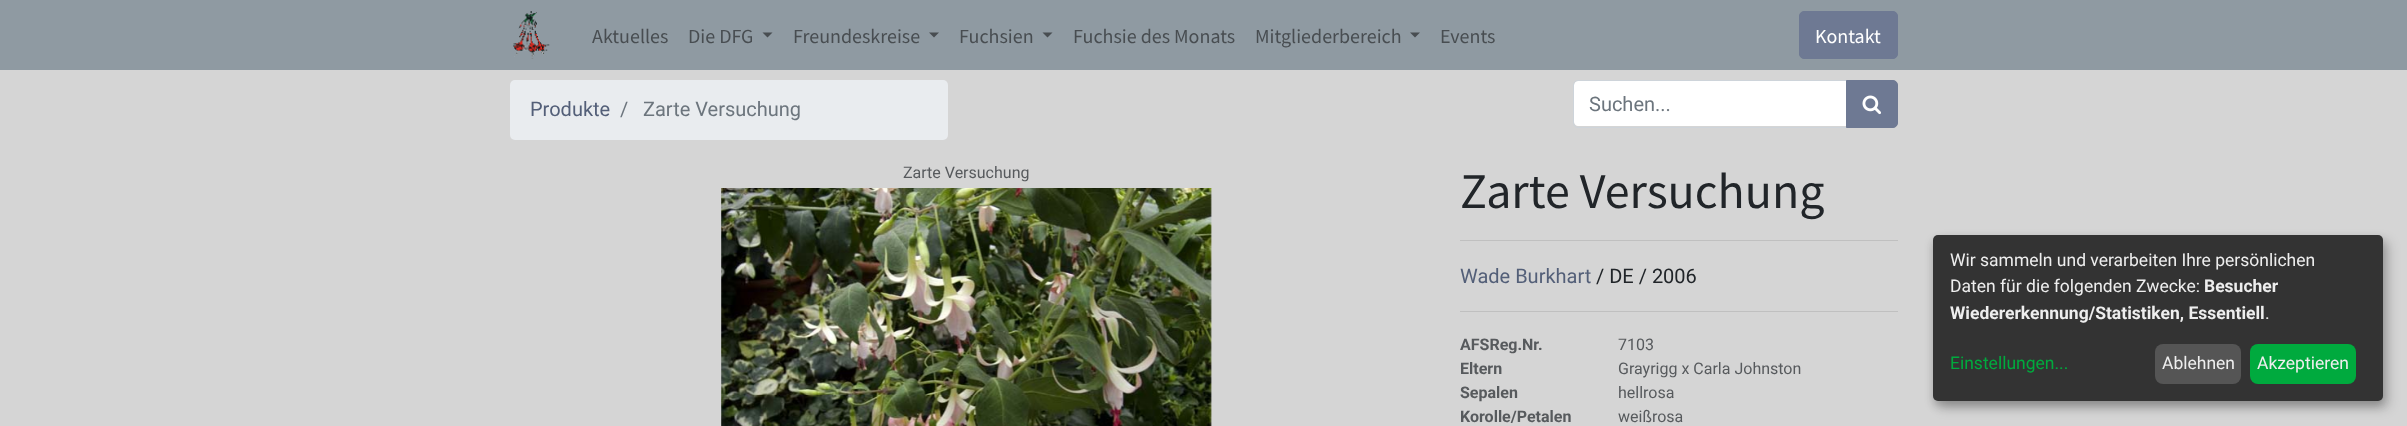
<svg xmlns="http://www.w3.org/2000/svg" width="2407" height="426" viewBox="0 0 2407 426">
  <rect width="100%" height="100%" fill="rgb(213,213,213)"/>
  <rect x="0" y="0" width="2407" height="70" fill="rgb(143,154,162)"/>
  <image x="513" y="11" width="37" height="48" href="pic1.png"/>
  <g font-family="Source Sans Pro" font-size="20" fill="rgb(72,77,81)">
    <text x="592" y="43">Aktuelles</text>
    <text x="688" y="43">Die DFG</text>
  </g>
  <path d="M762.5 32.5H772.5L767.5 37.5Z" fill="rgb(72,77,81)"/>
  <text x="793" y="43" font-family="Source Sans Pro" font-size="20" fill="rgb(72,77,81)">Freundeskreise</text>
  <path d="M929 32.5H939L934 37.5Z" fill="rgb(72,77,81)"/>
  <text x="959" y="43" font-family="Source Sans Pro" font-size="20" fill="rgb(72,77,81)">Fuchsien</text>
  <path d="M1042.5 32.5H1052.5L1047.5 37.5Z" fill="rgb(72,77,81)"/>
  <g font-family="Source Sans Pro" font-size="20" fill="rgb(72,77,81)">
    <text x="1073" y="43">Fuchsie des Monats</text>
    <text x="1255" y="43">Mitgliederbereich</text>
  </g>
  <path d="M1410 32.5H1420L1415 37.5Z" fill="rgb(72,77,81)"/>
  <text x="1440" y="43" font-family="Source Sans Pro" font-size="20" fill="rgb(72,77,81)">Events</text>
  <rect x="1799.5" y="11.5" width="98" height="47" rx="4.5" fill="rgb(110,121,147)" stroke="rgb(110,121,147)"/>
  <text x="1815" y="43" font-family="Source Sans Pro" font-size="20" fill="rgb(255,255,255)">Kontakt</text>
  <rect x="510" y="80" width="438" height="60" rx="5" fill="rgb(233,236,239)"/>
  <text x="530" y="116" font-family="Roboto" font-size="20" fill="rgb(83,95,120)">Produkte</text>
  <g font-family="Roboto" font-size="20" fill="rgb(108,117,125)">
    <text x="620" y="116">/</text>
    <text x="643" y="116">Zarte Versuchung</text>
  </g>
  <path d="M1578 81H1846V126H1578C1576 126 1574 124 1574 122V85C1574 83 1576 81 1578 81Z" fill="rgb(255,255,255)"/>
  <path d="M1578 80.5H1847.5V127.5H1578C1575.5 127.5 1573.5 125.5 1573.5 123V85C1573.5 82.5 1575.5 80.5 1578 80.5Z" fill="none" stroke="rgb(206,212,218)"/>
  <text x="1589" y="111" font-family="Roboto" font-size="20" fill="rgb(108,117,125)">Suchen...</text>
  <path d="M1846.5 80.5H1893C1895.5 80.5 1897.5 82.5 1897.5 85V123C1897.5 125.5 1895.5 127.5 1893 127.5H1846.5Z" fill="rgb(110,121,147)" stroke="rgb(110,121,147)"/>
  <image x="1862" y="95" width="19" height="20" href="pic2.png"/>
  <text x="903" y="178" font-family="Roboto" font-size="16" fill="rgb(87,90,93)">Zarte Versuchung</text>
  <image x="721" y="188" width="491" height="238" href="pic3.png"/>
  <text x="1460" y="208" font-family="Source Sans Pro" font-size="50" fill="rgb(33,37,41)">Zarte Versuchung</text>
  <rect x="1460" y="240" width="438" height="1" fill="rgb(192,192,192)"/>
  <text x="1460" y="283" font-family="Roboto" font-size="20" fill="rgb(83,95,120)">Wade Burkhart</text>
  <text x="1596" y="283" font-family="Roboto" font-size="20" fill="rgb(33,37,41)">/ DE / 2006</text>
  <rect x="1460" y="311" width="438" height="1" fill="rgb(192,192,192)"/>
  <text x="1460" y="350" font-family="Roboto" font-size="16" font-weight="bold" fill="rgb(87,90,93)">AFSReg.Nr.</text>
  <text x="1618" y="350" font-family="Roboto" font-size="16" fill="rgb(87,90,93)">7103</text>
  <text x="1460" y="374" font-family="Roboto" font-size="16" font-weight="bold" fill="rgb(87,90,93)">Eltern</text>
  <text x="1618" y="374" font-family="Roboto" font-size="16" fill="rgb(87,90,93)">Grayrigg x Carla Johnston</text>
  <text x="1460" y="398" font-family="Roboto" font-size="16" font-weight="bold" fill="rgb(87,90,93)">Sepalen</text>
  <text x="1618" y="398" font-family="Roboto" font-size="16" fill="rgb(87,90,93)">hellrosa</text>
  <text x="1460" y="422" font-family="Roboto" font-size="16" font-weight="bold" fill="rgb(87,90,93)">Korolle/Petalen</text>
  <text x="1618" y="422" font-family="Roboto" font-size="16" fill="rgb(87,90,93)">weißrosa</text>
  <rect x="1939" y="241" width="450" height="167" rx="5" fill="rgba(0,0,0,0.19)" filter="blur(6px)"/>
  <rect x="1933" y="240" width="450" height="166" rx="5" fill="rgba(0,0,0,0.2)" filter="blur(4px)"/>
  <rect x="1933" y="235" width="450" height="166" rx="5" fill="rgb(51,51,51)"/>
  <g font-family="Roboto" font-size="17.5" fill="rgb(238,238,238)">
    <text>
      <tspan x="1950" y="266">Wir sammeln und verarbeiten Ihre persönlichen</tspan>
      <tspan x="1950" y="292">Daten für die folgenden Zwecke:</tspan>
    </text>
  </g>
  <g font-family="Roboto" font-size="17.5" font-weight="bold" fill="rgb(238,238,238)">
    <text x="2204" y="292">Besucher</text>
    <text x="1950" y="319">Wiedererkennung/Statistiken, Essentiell</text>
  </g>
  <text x="2265" y="319" font-family="Roboto" font-size="17.5" fill="rgb(238,238,238)">.</text>
  <text x="1950" y="369" font-family="Roboto" font-size="17.5" fill="rgb(0,170,62)">Einstellungen...</text>
  <rect x="2155" y="344" width="86" height="40" rx="8" fill="rgb(85,85,85)"/>
  <text x="2162" y="369" font-family="Roboto" font-size="17.5" fill="rgb(238,238,238)">Ablehnen</text>
  <rect x="2250" y="344" width="106" height="40" rx="8" fill="rgb(0,170,62)"/>
  <text x="2257" y="369" font-family="Roboto" font-size="17.5" fill="rgb(238,238,238)">Akzeptieren</text>
</svg>
